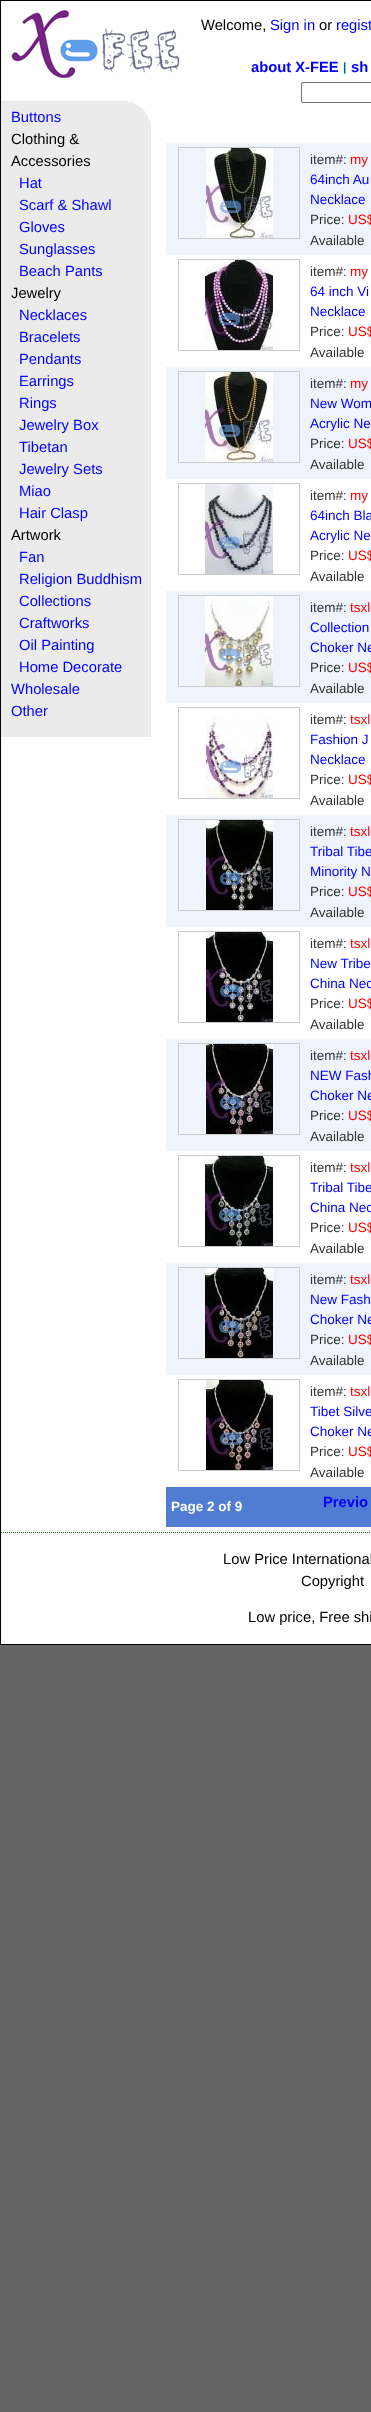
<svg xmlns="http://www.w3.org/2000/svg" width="371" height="2412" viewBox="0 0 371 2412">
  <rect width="100%" height="100%" fill="rgb(101,101,101)"/>
  <rect x="0.5" y="0.5" width="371" height="1644" fill="rgb(255,255,255)" stroke="rgb(0,0,0)"/>
  <image x="11" y="9" width="169" height="69" href="pic1.png"/>
  <text x="201" y="30" font-family="Liberation Sans" font-size="14.75" fill="rgb(0,0,0)">Welcome,</text>
  <text x="270" y="30" font-family="Liberation Sans" font-size="14.75" fill="rgb(0,0,255)">Sign in</text>
  <text x="319" y="30" font-family="Liberation Sans" font-size="14.75" fill="rgb(0,0,0)">or</text>
  <text x="336" y="30" font-family="Liberation Sans" font-size="14.75" fill="rgb(0,0,255)">regist</text>
  <text x="251" y="72" font-family="Liberation Sans" font-size="14.75" font-weight="bold" fill="rgb(0,0,255)">about X-FEE</text>
  <text x="343" y="71" font-family="Liberation Sans" font-size="12" font-weight="bold" fill="rgb(0,102,153)">|</text>
  <text x="351" y="72" font-family="Liberation Sans" font-size="14.75" font-weight="bold" fill="rgb(0,0,255)">sh</text>
  <rect x="301.5" y="82.5" width="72" height="20" rx="1.5" fill="none" stroke="rgb(118,118,118)"/>
  <rect x="1" y="101" width="150" height="636" fill="rgb(235,235,235)"/>
  <image x="128" y="101" width="23" height="23" href="pic2.png"/>
  <text x="11" y="122" font-family="Liberation Sans" font-size="14.75" fill="rgb(0,0,255)">Buttons</text>
  <g font-family="Liberation Sans" font-size="14.75" fill="rgb(0,0,0)">
    <text>
      <tspan x="11" y="144">Clothing &amp;</tspan>
      <tspan x="11" y="166">Accessories</tspan>
    </text>
  </g>
  <g font-family="Liberation Sans" font-size="14.75" fill="rgb(0,0,255)">
    <text>
      <tspan x="19" y="188">Hat</tspan>
      <tspan x="19" y="210">Scarf &amp; Shawl</tspan>
      <tspan x="19" y="232">Gloves</tspan>
      <tspan x="19" y="254">Sunglasses</tspan>
      <tspan x="19" y="276">Beach Pants</tspan>
    </text>
  </g>
  <text x="11" y="298" font-family="Liberation Sans" font-size="14.75" fill="rgb(0,0,0)">Jewelry</text>
  <g font-family="Liberation Sans" font-size="14.75" fill="rgb(0,0,255)">
    <text>
      <tspan x="19" y="320">Necklaces</tspan>
      <tspan x="19" y="342">Bracelets</tspan>
      <tspan x="19" y="364">Pendants</tspan>
      <tspan x="19" y="386">Earrings</tspan>
      <tspan x="19" y="408">Rings</tspan>
      <tspan x="19" y="430">Jewelry Box</tspan>
      <tspan x="19" y="452">Tibetan</tspan>
      <tspan x="19" y="474">Jewelry Sets</tspan>
      <tspan x="19" y="496">Miao</tspan>
      <tspan x="19" y="518">Hair Clasp</tspan>
    </text>
  </g>
  <text x="11" y="540" font-family="Liberation Sans" font-size="14.75" fill="rgb(0,0,0)">Artwork</text>
  <g font-family="Liberation Sans" font-size="14.75" fill="rgb(0,0,255)">
    <text>
      <tspan x="19" y="562">Fan</tspan>
      <tspan x="19" y="584">Religion Buddhism</tspan>
      <tspan x="19" y="606">Collections</tspan>
      <tspan x="19" y="628">Craftworks</tspan>
      <tspan x="19" y="650">Oil Painting</tspan>
      <tspan x="19" y="672">Home Decorate</tspan>
    </text>
    <text>
      <tspan x="11" y="694">Wholesale</tspan>
      <tspan x="11" y="716">Other</tspan>
    </text>
  </g>
  <rect x="166" y="143" width="205" height="112" fill="rgb(239,243,251)"/>
  <rect x="178.5" y="147.5" width="121" height="91" fill="none" stroke="rgb(204,204,204)"/>
  <image x="206" y="148" width="67" height="90" href="pic3.png"/>
  <text x="310" y="164" font-family="Liberation Sans" font-size="13.5" fill="rgb(51,51,51)">item#:</text>
  <text x="350" y="164" font-family="Liberation Sans" font-size="13.5" fill="rgb(255,0,0)">my</text>
  <g font-family="Liberation Sans" font-size="13.5" fill="rgb(0,0,255)">
    <text>
      <tspan x="310" y="184">64inch Au</tspan>
      <tspan x="310" y="204">Necklace</tspan>
    </text>
  </g>
  <text x="310" y="224" font-family="Liberation Sans" font-size="13.5" fill="rgb(51,51,51)">Price:</text>
  <text x="348" y="224" font-family="Liberation Sans" font-size="13.5" fill="rgb(255,0,0)">US$</text>
  <text x="310" y="245" font-family="Liberation Sans" font-size="13.5" fill="rgb(51,51,51)">Available</text>
  <rect x="178.5" y="259.5" width="121" height="91" fill="none" stroke="rgb(204,204,204)"/>
  <image x="205" y="260" width="68" height="90" href="pic4.png"/>
  <text x="310" y="276" font-family="Liberation Sans" font-size="13.5" fill="rgb(51,51,51)">item#:</text>
  <text x="350" y="276" font-family="Liberation Sans" font-size="13.5" fill="rgb(255,0,0)">my</text>
  <g font-family="Liberation Sans" font-size="13.5" fill="rgb(0,0,255)">
    <text>
      <tspan x="310" y="296">64 inch Vi</tspan>
      <tspan x="310" y="316">Necklace</tspan>
    </text>
  </g>
  <text x="310" y="336" font-family="Liberation Sans" font-size="13.5" fill="rgb(51,51,51)">Price:</text>
  <text x="348" y="336" font-family="Liberation Sans" font-size="13.5" fill="rgb(255,0,0)">US$</text>
  <text x="310" y="357" font-family="Liberation Sans" font-size="13.5" fill="rgb(51,51,51)">Available</text>
  <rect x="166" y="367" width="205" height="112" fill="rgb(239,243,251)"/>
  <rect x="178.5" y="371.5" width="121" height="91" fill="none" stroke="rgb(204,204,204)"/>
  <image x="205" y="372" width="68" height="90" href="pic5.png"/>
  <text x="310" y="388" font-family="Liberation Sans" font-size="13.5" fill="rgb(51,51,51)">item#:</text>
  <text x="350" y="388" font-family="Liberation Sans" font-size="13.5" fill="rgb(255,0,0)">my</text>
  <g font-family="Liberation Sans" font-size="13.5" fill="rgb(0,0,255)">
    <text>
      <tspan x="310" y="408">New Wom</tspan>
      <tspan x="310" y="428">Acrylic Ne</tspan>
    </text>
  </g>
  <text x="310" y="448" font-family="Liberation Sans" font-size="13.5" fill="rgb(51,51,51)">Price:</text>
  <text x="348" y="448" font-family="Liberation Sans" font-size="13.5" fill="rgb(255,0,0)">US$</text>
  <text x="310" y="469" font-family="Liberation Sans" font-size="13.5" fill="rgb(51,51,51)">Available</text>
  <rect x="178.5" y="483.5" width="121" height="91" fill="none" stroke="rgb(204,204,204)"/>
  <image x="205" y="484" width="68" height="90" href="pic6.png"/>
  <text x="310" y="500" font-family="Liberation Sans" font-size="13.5" fill="rgb(51,51,51)">item#:</text>
  <text x="350" y="500" font-family="Liberation Sans" font-size="13.5" fill="rgb(255,0,0)">my</text>
  <g font-family="Liberation Sans" font-size="13.5" fill="rgb(0,0,255)">
    <text>
      <tspan x="310" y="520">64inch Bla</tspan>
      <tspan x="310" y="540">Acrylic Ne</tspan>
    </text>
  </g>
  <text x="310" y="560" font-family="Liberation Sans" font-size="13.5" fill="rgb(51,51,51)">Price:</text>
  <text x="348" y="560" font-family="Liberation Sans" font-size="13.5" fill="rgb(255,0,0)">US$</text>
  <text x="310" y="581" font-family="Liberation Sans" font-size="13.5" fill="rgb(51,51,51)">Available</text>
  <rect x="166" y="591" width="205" height="112" fill="rgb(239,243,251)"/>
  <rect x="178.5" y="595.5" width="121" height="91" fill="none" stroke="rgb(204,204,204)"/>
  <image x="205" y="596" width="68" height="90" href="pic7.png"/>
  <text x="310" y="612" font-family="Liberation Sans" font-size="13.5" fill="rgb(51,51,51)">item#:</text>
  <text x="350" y="612" font-family="Liberation Sans" font-size="13.5" fill="rgb(255,0,0)">tsxl</text>
  <g font-family="Liberation Sans" font-size="13.5" fill="rgb(0,0,255)">
    <text>
      <tspan x="310" y="632">Collection</tspan>
      <tspan x="310" y="652">Choker Ne</tspan>
    </text>
  </g>
  <text x="310" y="672" font-family="Liberation Sans" font-size="13.5" fill="rgb(51,51,51)">Price:</text>
  <text x="348" y="672" font-family="Liberation Sans" font-size="13.5" fill="rgb(255,0,0)">US$</text>
  <text x="310" y="693" font-family="Liberation Sans" font-size="13.5" fill="rgb(51,51,51)">Available</text>
  <rect x="178.5" y="707.5" width="121" height="91" fill="none" stroke="rgb(204,204,204)"/>
  <image x="206" y="716" width="67" height="82" href="pic8.png"/>
  <text x="310" y="724" font-family="Liberation Sans" font-size="13.5" fill="rgb(51,51,51)">item#:</text>
  <text x="350" y="724" font-family="Liberation Sans" font-size="13.5" fill="rgb(255,0,0)">tsxl</text>
  <g font-family="Liberation Sans" font-size="13.5" fill="rgb(0,0,255)">
    <text>
      <tspan x="310" y="744">Fashion J</tspan>
      <tspan x="310" y="764">Necklace</tspan>
    </text>
  </g>
  <text x="310" y="784" font-family="Liberation Sans" font-size="13.5" fill="rgb(51,51,51)">Price:</text>
  <text x="348" y="784" font-family="Liberation Sans" font-size="13.5" fill="rgb(255,0,0)">US$</text>
  <text x="310" y="805" font-family="Liberation Sans" font-size="13.5" fill="rgb(51,51,51)">Available</text>
  <rect x="166" y="815" width="205" height="112" fill="rgb(239,243,251)"/>
  <rect x="178.5" y="819.5" width="121" height="91" fill="none" stroke="rgb(204,204,204)"/>
  <image x="206" y="820" width="67" height="90" href="pic9.png"/>
  <text x="310" y="836" font-family="Liberation Sans" font-size="13.5" fill="rgb(51,51,51)">item#:</text>
  <text x="350" y="836" font-family="Liberation Sans" font-size="13.5" fill="rgb(255,0,0)">tsxl</text>
  <g font-family="Liberation Sans" font-size="13.5" fill="rgb(0,0,255)">
    <text>
      <tspan x="310" y="856">Tribal Tibe</tspan>
      <tspan x="310" y="876">Minority N</tspan>
    </text>
  </g>
  <text x="310" y="896" font-family="Liberation Sans" font-size="13.5" fill="rgb(51,51,51)">Price:</text>
  <text x="348" y="896" font-family="Liberation Sans" font-size="13.5" fill="rgb(255,0,0)">US$</text>
  <text x="310" y="917" font-family="Liberation Sans" font-size="13.5" fill="rgb(51,51,51)">Available</text>
  <rect x="178.5" y="931.5" width="121" height="91" fill="none" stroke="rgb(204,204,204)"/>
  <image x="206" y="932" width="67" height="90" href="pic10.png"/>
  <text x="310" y="948" font-family="Liberation Sans" font-size="13.5" fill="rgb(51,51,51)">item#:</text>
  <text x="350" y="948" font-family="Liberation Sans" font-size="13.5" fill="rgb(255,0,0)">tsxl</text>
  <g font-family="Liberation Sans" font-size="13.5" fill="rgb(0,0,255)">
    <text>
      <tspan x="310" y="968">New Tribe</tspan>
      <tspan x="310" y="988">China Nec</tspan>
    </text>
  </g>
  <text x="310" y="1008" font-family="Liberation Sans" font-size="13.5" fill="rgb(51,51,51)">Price:</text>
  <text x="348" y="1008" font-family="Liberation Sans" font-size="13.5" fill="rgb(255,0,0)">US$</text>
  <text x="310" y="1029" font-family="Liberation Sans" font-size="13.5" fill="rgb(51,51,51)">Available</text>
  <rect x="166" y="1039" width="205" height="112" fill="rgb(239,243,251)"/>
  <rect x="178.5" y="1043.5" width="121" height="91" fill="none" stroke="rgb(204,204,204)"/>
  <image x="206" y="1044" width="67" height="90" href="pic11.png"/>
  <text x="310" y="1060" font-family="Liberation Sans" font-size="13.5" fill="rgb(51,51,51)">item#:</text>
  <text x="350" y="1060" font-family="Liberation Sans" font-size="13.5" fill="rgb(255,0,0)">tsxl</text>
  <g font-family="Liberation Sans" font-size="13.5" fill="rgb(0,0,255)">
    <text>
      <tspan x="310" y="1080">NEW Fash</tspan>
      <tspan x="310" y="1100">Choker Ne</tspan>
    </text>
  </g>
  <text x="310" y="1120" font-family="Liberation Sans" font-size="13.5" fill="rgb(51,51,51)">Price:</text>
  <text x="348" y="1120" font-family="Liberation Sans" font-size="13.5" fill="rgb(255,0,0)">US$</text>
  <text x="310" y="1141" font-family="Liberation Sans" font-size="13.5" fill="rgb(51,51,51)">Available</text>
  <rect x="178.5" y="1155.5" width="121" height="91" fill="none" stroke="rgb(204,204,204)"/>
  <image x="205" y="1156" width="68" height="90" href="pic12.png"/>
  <text x="310" y="1172" font-family="Liberation Sans" font-size="13.5" fill="rgb(51,51,51)">item#:</text>
  <text x="350" y="1172" font-family="Liberation Sans" font-size="13.5" fill="rgb(255,0,0)">tsxl</text>
  <g font-family="Liberation Sans" font-size="13.5" fill="rgb(0,0,255)">
    <text>
      <tspan x="310" y="1192">Tribal Tibe</tspan>
      <tspan x="310" y="1212">China Nec</tspan>
    </text>
  </g>
  <text x="310" y="1232" font-family="Liberation Sans" font-size="13.5" fill="rgb(51,51,51)">Price:</text>
  <text x="348" y="1232" font-family="Liberation Sans" font-size="13.5" fill="rgb(255,0,0)">US$</text>
  <text x="310" y="1253" font-family="Liberation Sans" font-size="13.5" fill="rgb(51,51,51)">Available</text>
  <rect x="166" y="1263" width="205" height="112" fill="rgb(239,243,251)"/>
  <rect x="178.5" y="1267.5" width="121" height="91" fill="none" stroke="rgb(204,204,204)"/>
  <image x="205" y="1268" width="68" height="90" href="pic13.png"/>
  <text x="310" y="1284" font-family="Liberation Sans" font-size="13.5" fill="rgb(51,51,51)">item#:</text>
  <text x="350" y="1284" font-family="Liberation Sans" font-size="13.5" fill="rgb(255,0,0)">tsxl</text>
  <g font-family="Liberation Sans" font-size="13.5" fill="rgb(0,0,255)">
    <text>
      <tspan x="310" y="1304">New Fash</tspan>
      <tspan x="310" y="1324">Choker Ne</tspan>
    </text>
  </g>
  <text x="310" y="1344" font-family="Liberation Sans" font-size="13.5" fill="rgb(51,51,51)">Price:</text>
  <text x="348" y="1344" font-family="Liberation Sans" font-size="13.5" fill="rgb(255,0,0)">US$</text>
  <text x="310" y="1365" font-family="Liberation Sans" font-size="13.5" fill="rgb(51,51,51)">Available</text>
  <rect x="178.5" y="1379.5" width="121" height="91" fill="none" stroke="rgb(204,204,204)"/>
  <image x="206" y="1380" width="67" height="90" href="pic14.png"/>
  <text x="310" y="1396" font-family="Liberation Sans" font-size="13.5" fill="rgb(51,51,51)">item#:</text>
  <text x="350" y="1396" font-family="Liberation Sans" font-size="13.5" fill="rgb(255,0,0)">tsxl</text>
  <g font-family="Liberation Sans" font-size="13.5" fill="rgb(0,0,255)">
    <text>
      <tspan x="310" y="1416">Tibet Silve</tspan>
      <tspan x="310" y="1436">Choker Ne</tspan>
    </text>
  </g>
  <text x="310" y="1456" font-family="Liberation Sans" font-size="13.5" fill="rgb(51,51,51)">Price:</text>
  <text x="348" y="1456" font-family="Liberation Sans" font-size="13.5" fill="rgb(255,0,0)">US$</text>
  <text x="310" y="1477" font-family="Liberation Sans" font-size="13.5" fill="rgb(51,51,51)">Available</text>
  <rect x="166" y="1487" width="205" height="40" fill="rgb(80,124,209)"/>
  <text x="171" y="1511" font-family="Liberation Sans" font-size="13.5" font-weight="bold" fill="rgb(255,255,255)">Page 2 of 9</text>
  <text x="323" y="1507" font-family="Liberation Sans" font-size="14.75" font-weight="bold" fill="rgb(0,0,255)">Previo</text>
  <path d="M1 1532.5H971" fill="none" stroke="rgb(0,102,0)" stroke-dasharray="1 1"/>
  <g font-family="Liberation Sans" font-size="14.75" fill="rgb(0,0,0)">
    <text x="223" y="1564">Low Price International</text>
    <text x="301" y="1586">Copyright</text>
    <text x="248" y="1622">Low price, Free shi</text>
  </g>
</svg>
